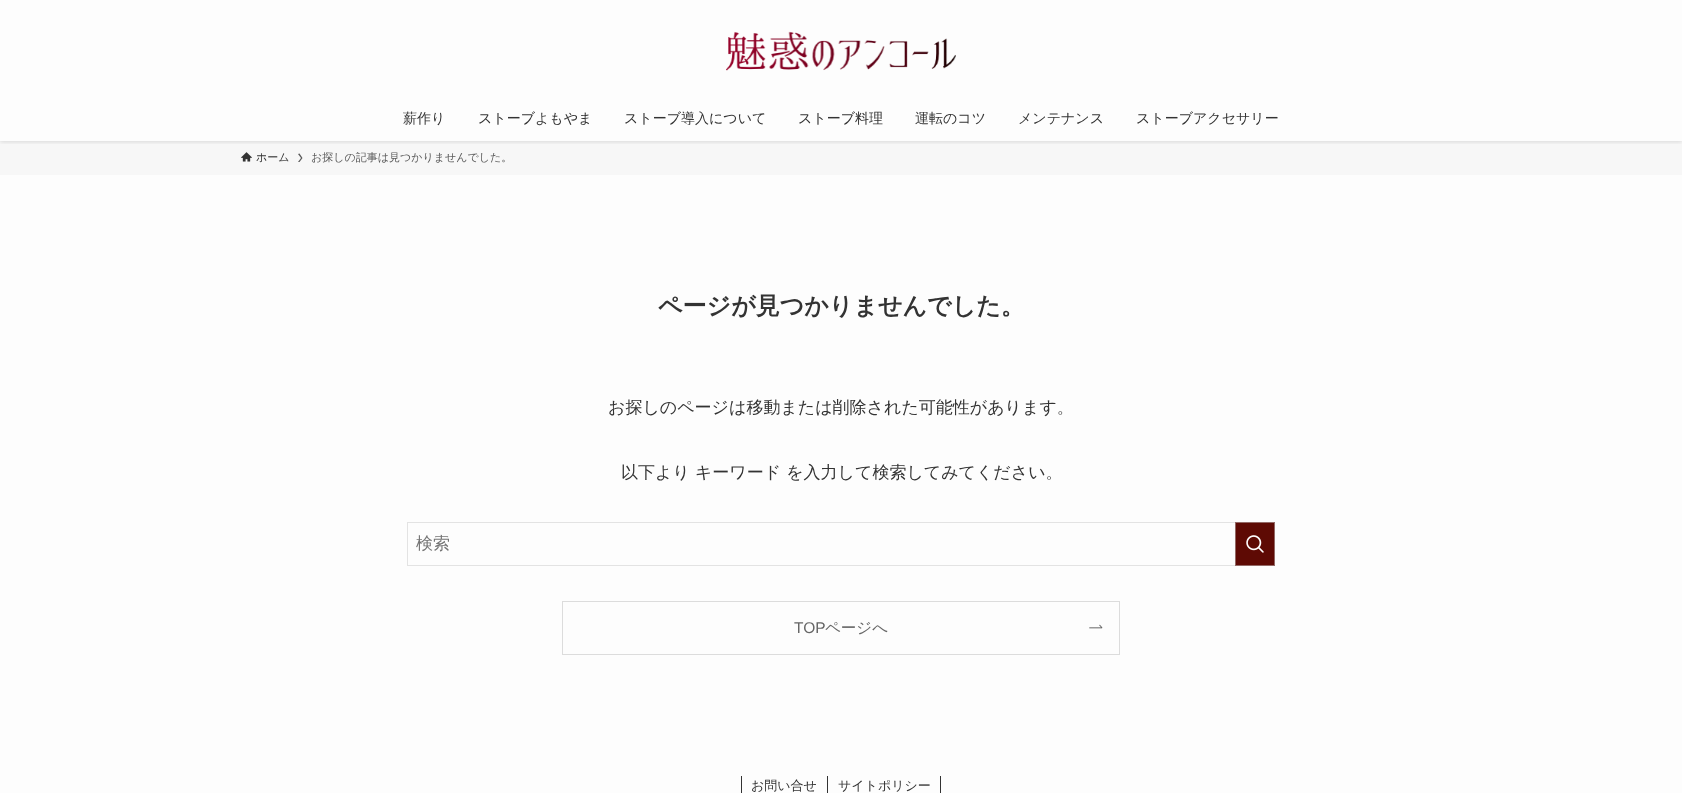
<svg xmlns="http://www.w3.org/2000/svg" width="1682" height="793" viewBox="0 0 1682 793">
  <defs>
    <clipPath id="clip1"><rect x="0" y="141" width="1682" height="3"/></clipPath>
  </defs>
  <rect width="100%" height="100%" fill="rgb(253,253,253)"/>
  <rect x="0" y="141" width="1682" height="34" fill="rgb(247,247,247)"/>
  <g clip-path="url(#clip1)">
    <rect x="0" y="1" width="1682" height="141" fill="rgba(0,0,0,0.12)" filter="blur(2px)"/>
  </g>
  <image x="726" y="31" width="230" height="40" href="pic1.png"/>
  <g font-family="WenQuanYi Zen Hei" font-size="14" font-weight="500" fill="rgb(51,51,51)">
    <text x="403" y="123">薪作り</text>
    <text x="478" y="123">ストーブよもやま</text>
    <text x="624" y="123">ストーブ導入について</text>
    <text x="798" y="123">ストーブ料理</text>
    <text x="915" y="123">運転のコツ</text>
    <text x="1018" y="123">メンテナンス</text>
    <text x="1136" y="123">ストーブアクセサリー</text>
  </g>
  <image x="241" y="152" width="11" height="10" href="pic2.png"/>
  <text x="256" y="161" font-family="WenQuanYi Zen Hei" font-size="11" font-weight="500" fill="rgb(51,51,51)">ホーム</text>
  <path d="M299.5 153.5L298 154L301 158L298 162H299.5L302.5 158Z" fill="rgb(90,90,90)"/>
  <text x="311" y="161" font-family="WenQuanYi Zen Hei" font-size="11" font-weight="500" fill="rgb(90,90,90)">お探しの記事は見つかりませんでした。</text>
  <text x="658" y="314" font-family="WenQuanYi Zen Hei" font-size="24" font-weight="bold" fill="rgb(51,51,51)">ページが見つかりませんでした。</text>
  <g font-family="WenQuanYi Zen Hei" font-size="17" font-weight="500" fill="rgb(51,51,51)">
    <text x="608" y="413">お探しのページは移動または削除された可能性があります。</text>
    <text x="621" y="478">以下より キーワード を入力して検索してみてください。</text>
  </g>
  <rect x="407.5" y="522.5" width="867" height="43" fill="none" stroke="rgb(227,227,227)"/>
  <text x="416" y="549" font-family="WenQuanYi Zen Hei" font-size="17" font-weight="500" fill="rgb(117,117,117)">検索</text>
  <rect x="1235.5" y="522.5" width="39" height="43" fill="rgb(94,10,4)" stroke="rgb(147,105,102)"/>
  <image x="1246" y="535" width="18" height="18" href="pic3.png"/>
  <rect x="562.5" y="601.5" width="557" height="53" fill="none" stroke="rgb(220,220,220)"/>
  <text x="794" y="633" font-family="Liberation Sans" font-size="15.5" fill="rgb(102,102,102)">TOP</text>
  <text x="825" y="633" font-family="WenQuanYi Zen Hei" font-size="15.5" font-weight="500" fill="rgb(102,102,102)">ページへ</text>
  <image x="1089" y="624" width="14" height="5" href="pic4.png"/>
  <rect x="827" y="776" width="1" height="17" fill="rgb(51,51,51)"/>
  <rect x="741" y="776" width="1" height="17" fill="rgb(51,51,51)"/>
  <text x="751" y="790" font-family="WenQuanYi Zen Hei" font-size="13" font-weight="500" fill="rgb(51,51,51)">お問い合せ</text>
  <rect x="940" y="776" width="1" height="17" fill="rgb(51,51,51)"/>
  <text x="838" y="790" font-family="WenQuanYi Zen Hei" font-size="13" font-weight="500" fill="rgb(51,51,51)">サイトポリシー</text>
</svg>
